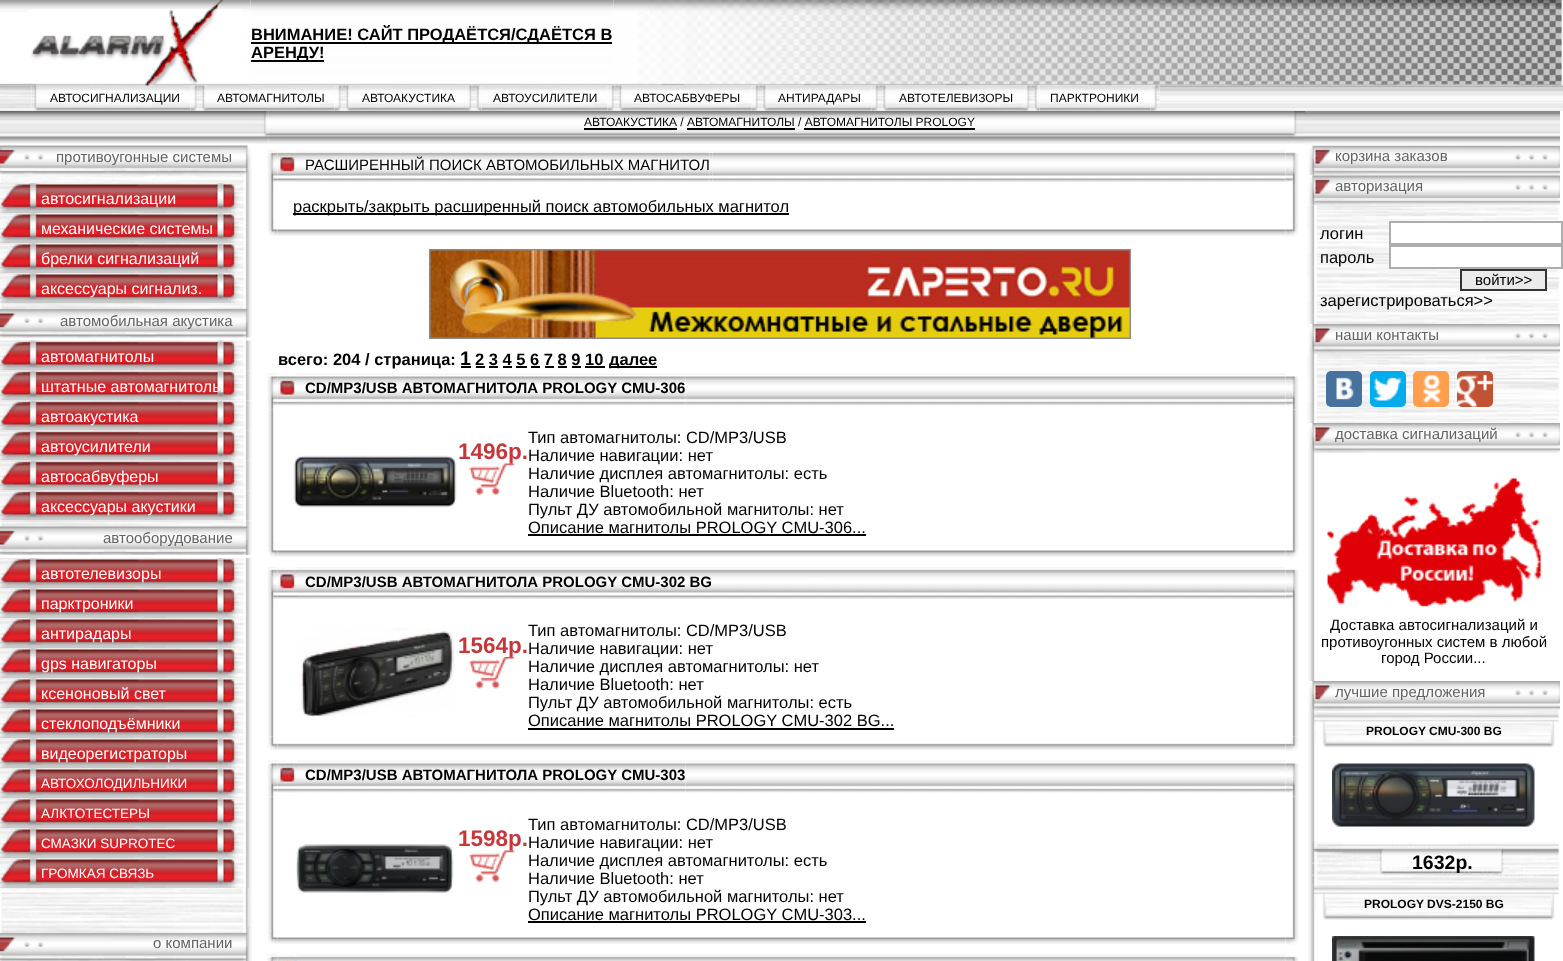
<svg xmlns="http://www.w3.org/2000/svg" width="1563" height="961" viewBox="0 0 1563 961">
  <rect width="100%" height="100%" fill="rgb(255,255,255)"/>
  <image x="250" y="0" width="364" height="86" href="pic2.png"/>
  <image x="39" y="85" width="152" height="26" href="pic6.png"/>
  <image x="207" y="85" width="128" height="26" href="pic8.png"/>
  <image x="0" y="0" width="251" height="86" href="pic1.png"/>
  <rect x="251" y="42" width="361" height="2" fill="rgb(0,0,0)"/>
  <text x="251" y="40" font-family="Liberation Sans" font-size="16.5" font-weight="bold" fill="rgb(0,0,0)">ВНИМАНИЕ! САЙТ ПРОДАЁТСЯ/СДАЁТСЯ В</text>
  <rect x="251" y="60" width="73" height="2" fill="rgb(0,0,0)"/>
  <text x="251" y="58" font-family="Liberation Sans" font-size="16.5" font-weight="bold" fill="rgb(0,0,0)">АРЕНДУ!</text>
  <image x="613" y="0" width="950" height="86" href="pic3.png"/>
  <image x="0" y="85" width="32" height="26" href="pic4.png"/>
  <image x="31" y="85" width="8" height="26" href="pic5.png"/>
  <text x="50" y="102" font-family="Liberation Sans" font-size="12" fill="rgb(0,0,0)">АВТОСИГНАЛИЗАЦИИ</text>
  <image x="190" y="85" width="17" height="26" href="pic7.png"/>
  <text x="217" y="102" font-family="Liberation Sans" font-size="12" fill="rgb(0,0,0)">АВТОМАГНИТОЛЫ</text>
  <image x="334" y="85" width="17" height="26" href="pic9.png"/>
  <image x="351" y="86" width="114" height="25" href="pic10.png"/>
  <text x="362" y="102" font-family="Liberation Sans" font-size="12" fill="rgb(0,0,0)">АВТОАКУСТИКА</text>
  <image x="481" y="86" width="127" height="25" href="pic12.png"/>
  <image x="465" y="85" width="17" height="26" href="pic11.png"/>
  <text x="493" y="102" font-family="Liberation Sans" font-size="12" fill="rgb(0,0,0)">АВТОУСИЛИТЕЛИ</text>
  <image x="607" y="85" width="17" height="26" href="pic13.png"/>
  <image x="624" y="85" width="128" height="26" href="pic14.png"/>
  <text x="634" y="102" font-family="Liberation Sans" font-size="12" fill="rgb(0,0,0)">АВТОСАБВУФЕРЫ</text>
  <image x="751" y="85" width="17" height="26" href="pic15.png"/>
  <image x="768" y="85" width="104" height="26" href="pic16.png"/>
  <text x="778" y="102" font-family="Liberation Sans" font-size="12" fill="rgb(0,0,0)">АНТИРАДАРЫ</text>
  <image x="871" y="85" width="17" height="26" href="pic17.png"/>
  <image x="888" y="85" width="135" height="26" href="pic18.png"/>
  <text x="899" y="102" font-family="Liberation Sans" font-size="12" fill="rgb(0,0,0)">АВТОТЕЛЕВИЗОРЫ</text>
  <image x="1039" y="85" width="112" height="26" href="pic20.png"/>
  <image x="1023" y="85" width="17" height="26" href="pic19.png"/>
  <text x="1050" y="102" font-family="Liberation Sans" font-size="12" fill="rgb(0,0,0)">ПАРКТРОНИКИ</text>
  <image x="1159" y="85" width="404" height="26" href="pic22.png"/>
  <image x="1150" y="85" width="10" height="26" href="pic21.png"/>
  <image x="0" y="111" width="255" height="33" href="pic23.png"/>
  <image x="0" y="145" width="252" height="38" href="pic24.png"/>
  <text x="56" y="162" font-family="Liberation Sans" font-size="15" fill="rgb(99,99,99)">противоугонные системы</text>
  <image x="0" y="183" width="252" height="30" href="pic25.png"/>
  <text x="41" y="204" font-family="Liberation Sans" font-size="16" fill="rgb(255,255,255)">автосигнализации</text>
  <image x="0" y="213" width="252" height="30" href="pic25.png"/>
  <text x="41" y="234" font-family="Liberation Sans" font-size="16" fill="rgb(255,255,255)">механические системы</text>
  <image x="0" y="243" width="252" height="30" href="pic25.png"/>
  <text x="41" y="264" font-family="Liberation Sans" font-size="16" fill="rgb(255,255,255)">брелки сигнализаций</text>
  <image x="0" y="273" width="252" height="30" href="pic25.png"/>
  <text x="41" y="294" font-family="Liberation Sans" font-size="16" fill="rgb(255,255,255)">аксессуары сигнализ.</text>
  <image x="0" y="303" width="252" height="35" href="pic26.png"/>
  <text x="60" y="326" font-family="Liberation Sans" font-size="15" fill="rgb(99,99,99)">автомобильная акустика</text>
  <image x="0" y="340" width="252" height="31" href="pic27.png"/>
  <text x="41" y="362" font-family="Liberation Sans" font-size="16" fill="rgb(255,255,255)">автомагнитолы</text>
  <image x="0" y="370" width="252" height="31" href="pic28.png"/>
  <text x="41" y="392" font-family="Liberation Sans" font-size="16" fill="rgb(255,255,255)">штатные автомагнитолы</text>
  <image x="0" y="400" width="252" height="31" href="pic28.png"/>
  <text x="41" y="422" font-family="Liberation Sans" font-size="16" fill="rgb(255,255,255)">автоакустика</text>
  <image x="0" y="430" width="252" height="31" href="pic28.png"/>
  <text x="41" y="452" font-family="Liberation Sans" font-size="16" fill="rgb(255,255,255)">автоусилители</text>
  <image x="0" y="460" width="252" height="31" href="pic28.png"/>
  <text x="41" y="482" font-family="Liberation Sans" font-size="16" fill="rgb(255,255,255)">автосабвуферы</text>
  <image x="0" y="490" width="252" height="31" href="pic28.png"/>
  <text x="41" y="512" font-family="Liberation Sans" font-size="16" fill="rgb(255,255,255)">аксессуары акустики</text>
  <image x="0" y="520" width="252" height="35" href="pic29.png"/>
  <text x="103" y="543" font-family="Liberation Sans" font-size="15" fill="rgb(99,99,99)">автооборудование</text>
  <image x="0" y="558" width="252" height="30" href="pic25.png"/>
  <text x="41" y="579" font-family="Liberation Sans" font-size="16" fill="rgb(255,255,255)">автотелевизоры</text>
  <image x="0" y="588" width="252" height="30" href="pic25.png"/>
  <text x="41" y="609" font-family="Liberation Sans" font-size="16" fill="rgb(255,255,255)">парктроники</text>
  <image x="0" y="618" width="252" height="30" href="pic25.png"/>
  <text x="41" y="639" font-family="Liberation Sans" font-size="16" fill="rgb(255,255,255)">антирадары</text>
  <image x="0" y="648" width="252" height="30" href="pic25.png"/>
  <text x="41" y="669" font-family="Liberation Sans" font-size="16" fill="rgb(255,255,255)">gps навигаторы</text>
  <image x="0" y="678" width="252" height="30" href="pic25.png"/>
  <text x="41" y="699" font-family="Liberation Sans" font-size="16" fill="rgb(255,255,255)">ксеноновый свет</text>
  <image x="0" y="708" width="252" height="30" href="pic25.png"/>
  <text x="41" y="729" font-family="Liberation Sans" font-size="16" fill="rgb(255,255,255)">стеклоподъёмники</text>
  <image x="0" y="738" width="252" height="30" href="pic25.png"/>
  <text x="41" y="759" font-family="Liberation Sans" font-size="16" fill="rgb(255,255,255)">видеорегистраторы</text>
  <image x="0" y="768" width="252" height="30" href="pic25.png"/>
  <text x="41" y="788" font-family="Liberation Sans" font-size="13.5" fill="rgb(255,255,255)">АВТОХОЛОДИЛЬНИКИ</text>
  <image x="0" y="798" width="252" height="30" href="pic25.png"/>
  <text x="41" y="818" font-family="Liberation Sans" font-size="13.5" fill="rgb(255,255,255)">АЛКТОТЕСТЕРЫ</text>
  <image x="0" y="828" width="252" height="30" href="pic25.png"/>
  <text x="41" y="848" font-family="Liberation Sans" font-size="13.5" fill="rgb(255,255,255)">СМАЗКИ SUPROTEC</text>
  <image x="0" y="858" width="252" height="30" href="pic25.png"/>
  <text x="41" y="878" font-family="Liberation Sans" font-size="13.5" fill="rgb(255,255,255)">ГРОМКАЯ СВЯЗЬ</text>
  <image x="1" y="888" width="251" height="39" href="pic30.png"/>
  <image x="0" y="927" width="252" height="34" href="pic31.png"/>
  <text x="153" y="948" font-family="Liberation Sans" font-size="15" fill="rgb(99,99,99)">о компании</text>
  <image x="255" y="111" width="14" height="33" href="pic32.png"/>
  <image x="268" y="111" width="1022" height="33" href="pic34.png"/>
  <image x="255" y="111" width="14" height="31" href="pic33.png"/>
  <text x="584" y="126" font-family="Liberation Sans" font-size="12" fill="rgb(0,0,0)">АВТОАКУСТИКА / АВТОМАГНИТОЛЫ / АВТОМАГНИТОЛЫ PROLOGY</text>
  <rect x="584" y="128" width="93" height="2" fill="rgb(0,0,0)"/>
  <rect x="687" y="128" width="108" height="2" fill="rgb(0,0,0)"/>
  <rect x="804" y="128" width="171" height="2" fill="rgb(0,0,0)"/>
  <image x="1290" y="111" width="15" height="33" href="pic35.png"/>
  <image x="1290" y="111" width="7" height="26" href="pic36.png"/>
  <image x="267" y="150" width="11" height="36" href="pic37.png"/>
  <image x="277" y="148" width="20" height="34" href="pic38.png"/>
  <image x="297" y="150" width="413" height="32" href="pic39.png"/>
  <text x="305" y="170" font-family="Liberation Sans" font-size="15" fill="rgb(0,0,0)">РАСШИРЕННЫЙ ПОИСК АВТОМОБИЛЬНЫХ МАГНИТОЛ</text>
  <image x="712" y="150" width="574" height="32" href="pic41.png"/>
  <image x="709" y="150" width="4" height="32" href="pic40.png"/>
  <image x="1285" y="152" width="14" height="34" href="pic42.png"/>
  <image x="267" y="186" width="7" height="36" href="pic43.png"/>
  <rect x="293" y="213" width="496" height="2" fill="rgb(0,0,0)"/>
  <text x="293" y="212" font-family="Liberation Sans" font-size="16.5" fill="rgb(0,0,0)">раскрыть/закрыть расширенный поиск автомобильных магнитол</text>
  <image x="1292" y="186" width="7" height="36" href="pic44.png"/>
  <image x="277" y="229" width="1009" height="7" href="pic46.png"/>
  <image x="267" y="222" width="11" height="14" href="pic45.png"/>
  <image x="1285" y="222" width="14" height="15" href="pic47.png"/>
  <image x="429" y="249" width="702" height="90" href="pic48.png"/>
  <text x="278" y="365" font-family="Liberation Sans" font-size="16.5" font-weight="bold" fill="rgb(0,0,0)">всего: 204 / страница:</text>
  <text x="460" y="365" font-family="Liberation Sans" font-size="19.5" font-weight="bold" fill="rgb(0,0,0)">1</text>
  <rect x="461" y="366" width="10" height="2" fill="rgb(0,0,0)"/>
  <text x="475" y="365" font-family="Liberation Sans" font-size="16.5" font-weight="bold" fill="rgb(0,0,0)">2 3 4 5 6 7 8 9 10</text>
  <rect x="476" y="366" width="9" height="2" fill="rgb(0,0,0)"/>
  <rect x="489" y="366" width="9" height="2" fill="rgb(0,0,0)"/>
  <rect x="503" y="366" width="9" height="2" fill="rgb(0,0,0)"/>
  <rect x="516" y="366" width="11" height="2" fill="rgb(0,0,0)"/>
  <rect x="531" y="366" width="9" height="2" fill="rgb(0,0,0)"/>
  <rect x="545" y="366" width="9" height="2" fill="rgb(0,0,0)"/>
  <rect x="558" y="366" width="9" height="2" fill="rgb(0,0,0)"/>
  <rect x="572" y="366" width="9" height="2" fill="rgb(0,0,0)"/>
  <rect x="609" y="366" width="48" height="2" fill="rgb(0,0,0)"/>
  <text x="609" y="365" font-family="Liberation Sans" font-size="16.5" font-weight="bold" fill="rgb(0,0,0)">далее</text>
  <rect x="585" y="366" width="20" height="2" fill="rgb(0,0,0)"/>
  <image x="267" y="373" width="11" height="37" href="pic49.png"/>
  <image x="277" y="372" width="20" height="34" href="pic50.png"/>
  <image x="297" y="373" width="389" height="33" href="pic51.png"/>
  <text x="305" y="393" font-family="Liberation Sans" font-size="15" font-weight="bold" fill="rgb(0,0,0)">CD/MP3/USB АВТОМАГНИТОЛА PROLOGY CMU-306</text>
  <image x="685" y="373" width="601" height="33" href="pic52.png"/>
  <image x="1285" y="376" width="14" height="34" href="pic53.png"/>
  <image x="267" y="409" width="7" height="134" href="pic54.png"/>
  <image x="293" y="455" width="164" height="53" href="pic55.png"/>
  <text x="458" y="459" font-family="Liberation Sans" font-size="22.5" font-weight="bold" fill="rgb(198,55,59)">1496р.</text>
  <image x="469" y="463" width="46" height="32" href="pic56.png"/>
  <g font-family="Liberation Sans" font-size="16.5" fill="rgb(0,0,0)">
    <text>
      <tspan x="528" y="443">Тип автомагнитолы: CD/MP3/USB</tspan>
      <tspan x="528" y="461">Наличие навигации: нет</tspan>
      <tspan x="528" y="479">Наличие дисплея автомагнитолы: есть</tspan>
      <tspan x="528" y="497">Наличие Bluetooth: нет</tspan>
      <tspan x="528" y="515">Пульт ДУ автомобильной магнитолы: нет</tspan>
      <tspan x="528" y="533">Описание магнитолы PROLOGY CMU-306...</tspan>
    </text>
  </g>
  <rect x="528" y="534" width="338" height="2" fill="rgb(0,0,0)"/>
  <image x="1292" y="409" width="7" height="134" href="pic57.png"/>
  <image x="277" y="550" width="1009" height="7" href="pic46.png"/>
  <image x="267" y="543" width="11" height="14" href="pic45.png"/>
  <image x="1285" y="543" width="14" height="15" href="pic47.png"/>
  <image x="267" y="567" width="11" height="36" href="pic37.png"/>
  <image x="277" y="565" width="20" height="34" href="pic38.png"/>
  <image x="297" y="567" width="414" height="32" href="pic58.png"/>
  <text x="305" y="587" font-family="Liberation Sans" font-size="15" font-weight="bold" fill="rgb(0,0,0)">CD/MP3/USB АВТОМАГНИТОЛА PROLOGY CMU-302 BG</text>
  <image x="711" y="567" width="575" height="32" href="pic59.png"/>
  <image x="1285" y="569" width="14" height="34" href="pic42.png"/>
  <image x="267" y="603" width="7" height="134" href="pic60.png"/>
  <image x="301" y="628" width="154" height="89" href="pic61.png"/>
  <text x="458" y="653" font-family="Liberation Sans" font-size="22.5" font-weight="bold" fill="rgb(198,55,59)">1564р.</text>
  <image x="469" y="657" width="46" height="32" href="pic62.png"/>
  <g font-family="Liberation Sans" font-size="16.5" fill="rgb(0,0,0)">
    <text>
      <tspan x="528" y="636">Тип автомагнитолы: CD/MP3/USB</tspan>
      <tspan x="528" y="654">Наличие навигации: нет</tspan>
      <tspan x="528" y="672">Наличие дисплея автомагнитолы: нет</tspan>
      <tspan x="528" y="690">Наличие Bluetooth: нет</tspan>
      <tspan x="528" y="708">Пульт ДУ автомобильной магнитолы: есть</tspan>
      <tspan x="528" y="726">Описание магнитолы PROLOGY CMU-302 BG...</tspan>
    </text>
  </g>
  <rect x="528" y="728" width="366" height="2" fill="rgb(0,0,0)"/>
  <image x="1292" y="603" width="7" height="134" href="pic63.png"/>
  <image x="277" y="743" width="1009" height="7" href="pic65.png"/>
  <image x="267" y="736" width="11" height="15" href="pic64.png"/>
  <image x="1285" y="736" width="14" height="15" href="pic66.png"/>
  <image x="267" y="760" width="11" height="37" href="pic49.png"/>
  <image x="277" y="759" width="20" height="34" href="pic50.png"/>
  <image x="297" y="760" width="389" height="33" href="pic67.png"/>
  <text x="305" y="780" font-family="Liberation Sans" font-size="15" font-weight="bold" fill="rgb(0,0,0)">CD/MP3/USB АВТОМАГНИТОЛА PROLOGY CMU-303</text>
  <image x="685" y="760" width="601" height="33" href="pic68.png"/>
  <image x="1285" y="763" width="14" height="34" href="pic53.png"/>
  <image x="267" y="796" width="7" height="134" href="pic54.png"/>
  <image x="296" y="844" width="158" height="49" href="pic69.png"/>
  <text x="458" y="846" font-family="Liberation Sans" font-size="22.5" font-weight="bold" fill="rgb(198,55,59)">1598р.</text>
  <image x="469" y="850" width="46" height="32" href="pic56.png"/>
  <g font-family="Liberation Sans" font-size="16.5" fill="rgb(0,0,0)">
    <text>
      <tspan x="528" y="830">Тип автомагнитолы: CD/MP3/USB</tspan>
      <tspan x="528" y="848">Наличие навигации: нет</tspan>
      <tspan x="528" y="866">Наличие дисплея автомагнитолы: есть</tspan>
      <tspan x="528" y="884">Наличие Bluetooth: нет</tspan>
      <tspan x="528" y="902">Пульт ДУ автомобильной магнитолы: нет</tspan>
      <tspan x="528" y="920">Описание магнитолы PROLOGY CMU-303...</tspan>
    </text>
  </g>
  <rect x="528" y="921" width="338" height="2" fill="rgb(0,0,0)"/>
  <image x="1292" y="796" width="7" height="134" href="pic57.png"/>
  <image x="277" y="937" width="1009" height="7" href="pic46.png"/>
  <image x="267" y="930" width="11" height="14" href="pic45.png"/>
  <image x="1285" y="930" width="14" height="15" href="pic47.png"/>
  <image x="267" y="954" width="11" height="7" href="pic70.png"/>
  <image x="277" y="952" width="20" height="9" href="pic71.png"/>
  <image x="297" y="954" width="414" height="7" href="pic72.png"/>
  <image x="711" y="954" width="575" height="7" href="pic73.png"/>
  <image x="1285" y="956" width="14" height="5" href="pic74.png"/>
  <image x="1308" y="145" width="252" height="31" href="pic76.png"/>
  <image x="1305" y="111" width="255" height="35" href="pic75.png"/>
  <text x="1335" y="161" font-family="Liberation Sans" font-size="15" fill="rgb(99,99,99)">корзина заказов</text>
  <image x="1308" y="175" width="252" height="31" href="pic77.png"/>
  <text x="1335" y="191" font-family="Liberation Sans" font-size="15" fill="rgb(99,99,99)">авторизация</text>
  <image x="1307" y="205" width="253" height="119" href="pic78.png"/>
  <text x="1320" y="239" font-family="Liberation Sans" font-size="16.5" fill="rgb(0,0,0)">логин</text>
  <rect x="1391" y="223" width="169" height="20" fill="rgb(255,255,255)"/>
  <rect x="1390" y="222" width="172" height="22" fill="none" stroke="rgb(173,173,173)" stroke-width="2"/>
  <text x="1320" y="263" font-family="Liberation Sans" font-size="16.5" fill="rgb(0,0,0)">пароль</text>
  <rect x="1391" y="247" width="169" height="20" fill="rgb(255,255,255)"/>
  <rect x="1390" y="246" width="172" height="22" fill="none" stroke="rgb(173,173,173)" stroke-width="2"/>
  <rect x="1461" y="270" width="85" height="20" fill="rgb(234,234,234)" stroke="rgb(51,51,51)" stroke-width="2"/>
  <text x="1475" y="285" font-family="Liberation Sans" font-size="15" fill="rgb(0,0,0)">войти&gt;&gt;</text>
  <text x="1320" y="306" font-family="Liberation Sans" font-size="16.5" fill="rgb(0,0,0)">зарегистрироваться&gt;&gt;</text>
  <image x="1308" y="324" width="252" height="30" href="pic79.png"/>
  <text x="1335" y="340" font-family="Liberation Sans" font-size="15" fill="rgb(99,99,99)">наши контакты</text>
  <image x="1307" y="354" width="253" height="69" href="pic80.png"/>
  <rect x="1326" y="371" width="36" height="36" rx="5" fill="rgb(72,114,158)"/>
  <image x="1336" y="377" width="18" height="23" href="pic81.png"/>
  <rect x="1370" y="371" width="36" height="36" rx="5" fill="rgb(0,172,237)"/>
  <image x="1373" y="377" width="29" height="24" href="pic82.png"/>
  <rect x="1413" y="371" width="36" height="36" rx="5" fill="rgb(255,159,77)"/>
  <image x="1423" y="374" width="18" height="29" href="pic83.png"/>
  <rect x="1457" y="371" width="36" height="36" rx="5" fill="rgb(194,82,52)"/>
  <image x="1456" y="374" width="37" height="33" href="pic84.png"/>
  <image x="1308" y="453" width="7" height="228" href="pic85.png"/>
  <image x="1308" y="423" width="252" height="30" href="pic79.png"/>
  <text x="1335" y="439" font-family="Liberation Sans" font-size="15" fill="rgb(99,99,99)">доставка сигнализаций</text>
  <image x="1327" y="478" width="214" height="129" href="pic86.png"/>
  <g font-family="Liberation Sans" font-size="15" fill="rgb(0,0,0)">
    <text x="1330" y="630">Доставка автосигнализаций и</text>
    <text x="1321" y="647">противоугонных систем в любой</text>
    <text x="1381" y="663">город России...</text>
  </g>
  <image x="1308" y="681" width="252" height="30" href="pic79.png"/>
  <text x="1335" y="697" font-family="Liberation Sans" font-size="15" fill="rgb(99,99,99)">лучшие предложения</text>
  <image x="1308" y="711" width="7" height="250" href="pic87.png"/>
  <image x="1313" y="711" width="246" height="37" href="pic88.png"/>
  <text x="1366" y="735" font-family="Liberation Sans" font-size="12" font-weight="bold" fill="rgb(0,0,0)">PROLOGY CMU-300 BG</text>
  <image x="1332" y="763" width="203" height="64" href="pic89.png"/>
  <image x="1312" y="841" width="248" height="43" href="pic90.png"/>
  <text x="1412" y="869" font-family="Liberation Sans" font-size="19.5" font-weight="bold" fill="rgb(0,0,0)">1632р.</text>
  <image x="1313" y="883" width="246" height="37" href="pic91.png"/>
  <text x="1364" y="908" font-family="Liberation Sans" font-size="12" font-weight="bold" fill="rgb(0,0,0)">PROLOGY DVS-2150 BG</text>
  <image x="1332" y="936" width="203" height="25" href="pic92.png"/>
</svg>
